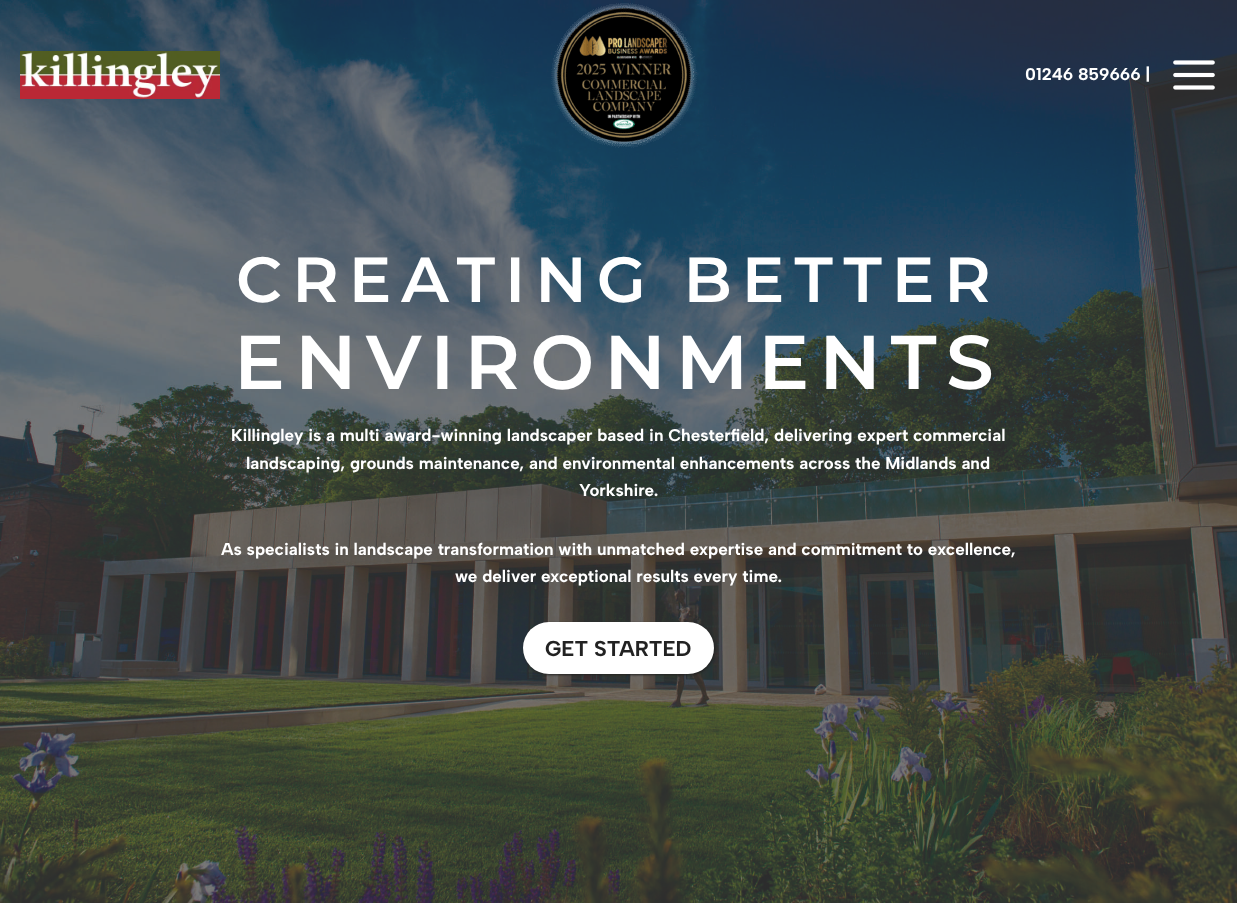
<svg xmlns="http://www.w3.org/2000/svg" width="1237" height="903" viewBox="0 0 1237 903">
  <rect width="100%" height="100%" fill="rgb(255,255,255)"/>
  <image x="0" y="0" width="1237" height="903" href="pic4.png"/>
  <image x="20" y="51" width="200" height="48" href="pic1.png"/>
  <image x="551" y="3" width="146" height="145" href="pic2.png"/>
  <text x="1025" y="80" font-family="Albert Sans" font-size="17" font-weight="bold" fill="rgb(255,255,255)">01246 859666 |</text>
  <image x="1173" y="60" width="42" height="30" href="pic3.png"/>
  <text x="236" y="302" font-family="Montserrat" font-size="63.6" font-weight="600" letter-spacing="10" fill="rgb(255,255,255)">CREATING BETTER</text>
  <text x="234" y="389" font-family="Montserrat" font-size="76" font-weight="600" letter-spacing="10" fill="rgb(255,255,255)">ENVIRONMENTS</text>
  <g font-family="Albert Sans" font-size="17" font-weight="bold" fill="rgb(255,255,255)">
    <text x="231" y="441">Killingley is a multi award-winning landscaper based in Chesterfield, delivering expert commercial</text>
    <text x="246" y="469">landscaping, grounds maintenance, and environmental enhancements across the Midlands and</text>
    <text x="579" y="496">Yorkshire.</text>
    <text x="221" y="555">As specialists in landscape transformation with unmatched expertise and commitment to excellence,</text>
    <text x="455" y="582">we deliver exceptional results every time.</text>
  </g>
  <rect x="524" y="623" width="191" height="52" rx="26" fill="rgb(34,34,34)" filter="blur(1px)"/>
  <rect x="523" y="622" width="191" height="52" rx="26" fill="rgb(255,255,255)"/>
  <text x="545" y="656" font-family="Albert Sans" font-size="21.5" font-weight="bold" fill="rgb(34,34,34)">GET STARTED</text>
</svg>
